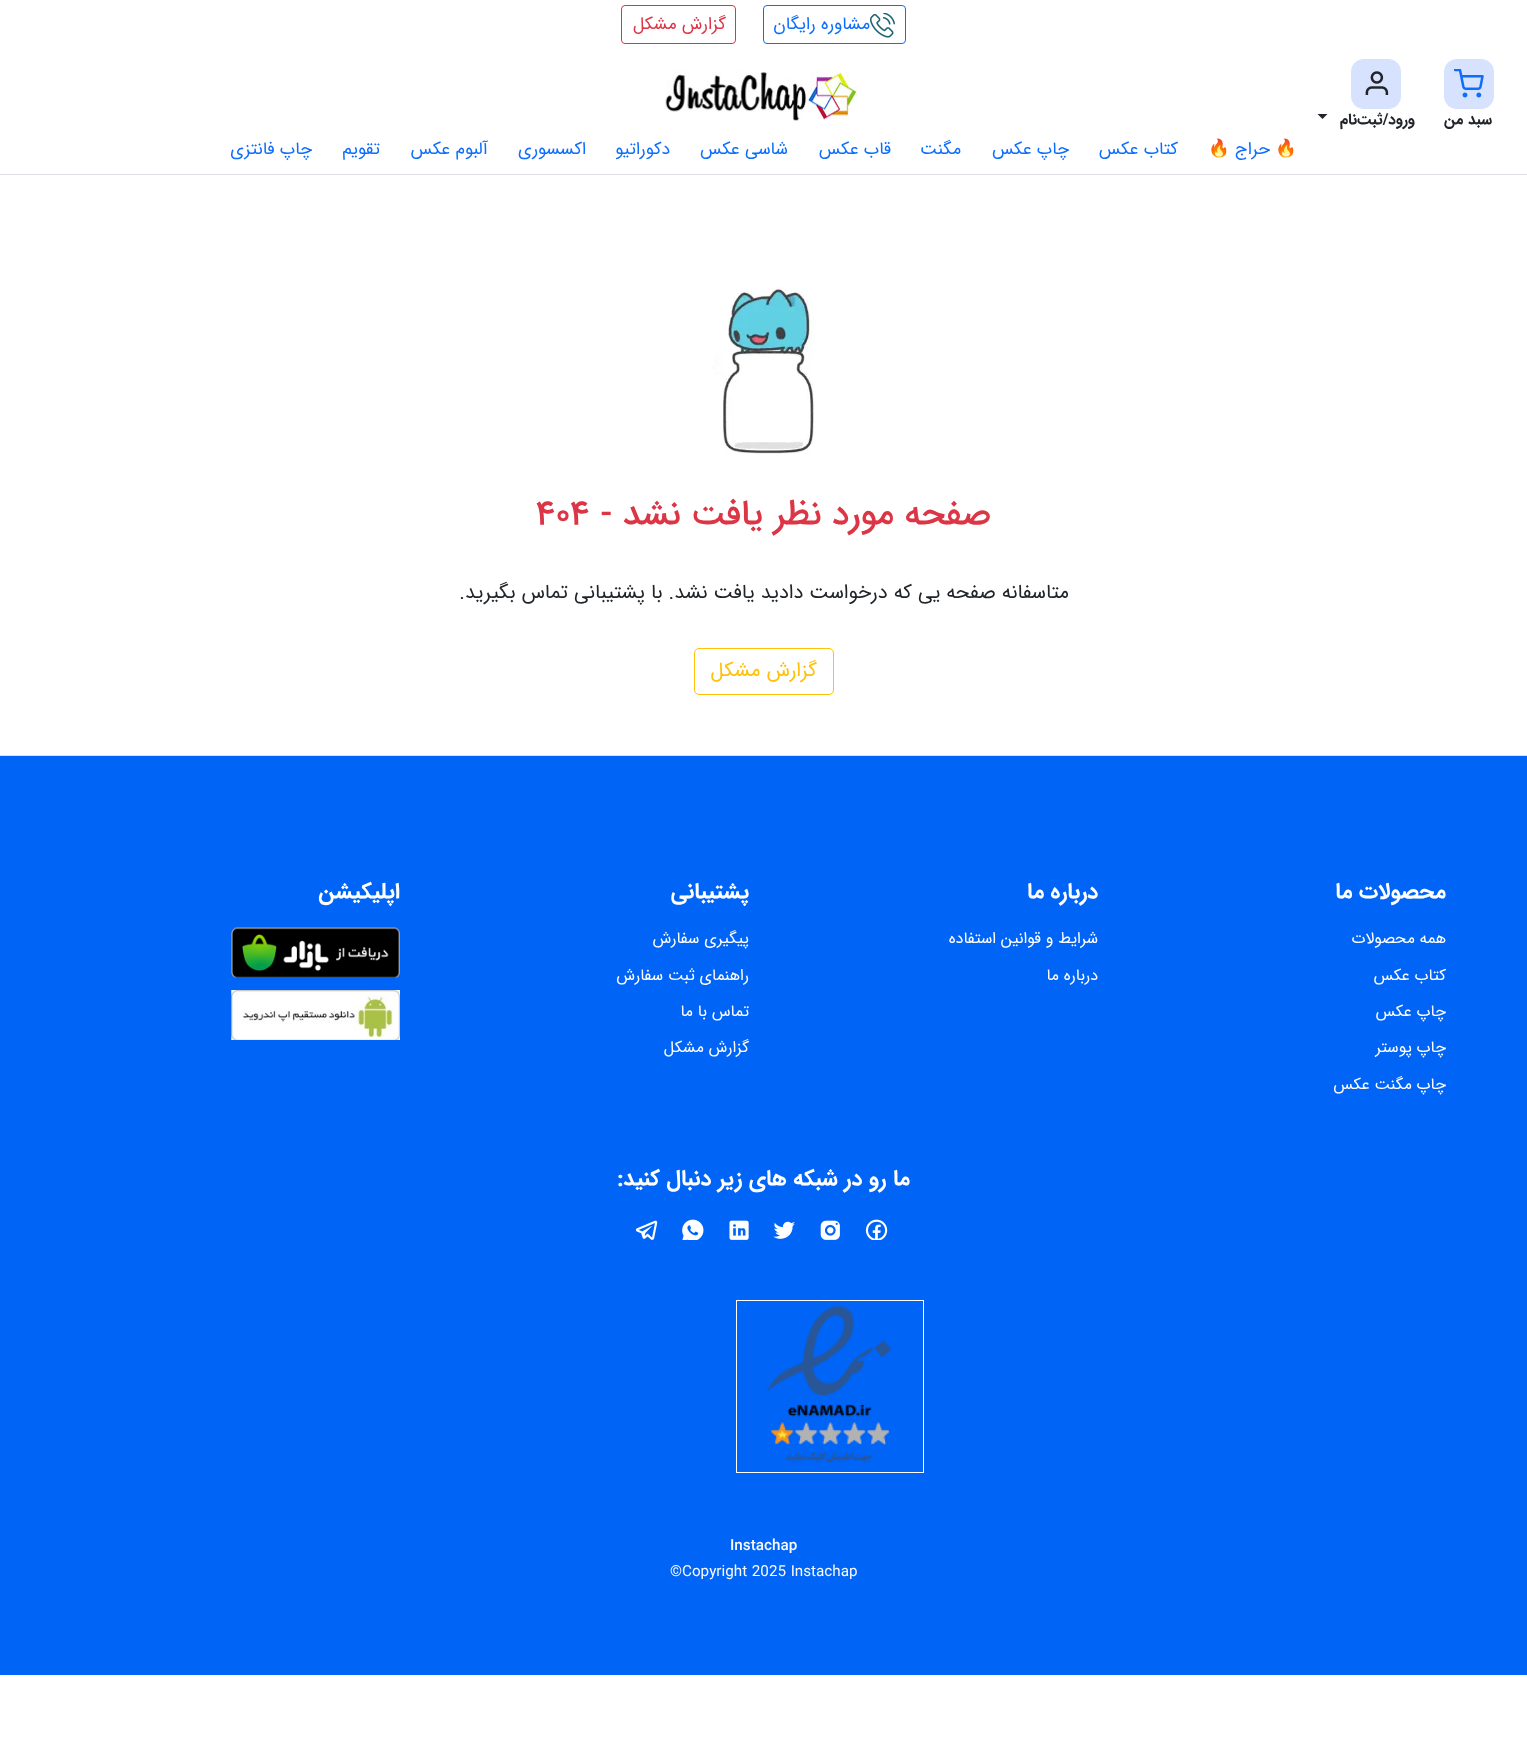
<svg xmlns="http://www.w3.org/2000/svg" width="1527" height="1750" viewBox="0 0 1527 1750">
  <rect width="100%" height="100%" fill="rgb(255,255,255)"/>
  <rect x="763.5" y="5.5" width="142" height="38" rx="3.5" fill="none" stroke="rgb(13,110,253)"/>
  <image x="870" y="13" width="25" height="25" href="pic1.png"/>
  <text x="870" y="29" font-family="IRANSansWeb" font-size="17.5" direction="rtl" fill="rgb(13,110,253)">مشاوره رایگان</text>
  <rect x="621.5" y="5.5" width="114" height="38" rx="3.5" fill="none" stroke="rgb(220,53,69)"/>
  <text x="726" y="29" font-family="IRANSansWeb" font-size="17.5" direction="rtl" fill="rgb(220,53,69)">گزارش مشکل</text>
  <rect x="0" y="174" width="1527" height="1" fill="rgb(222,226,230)"/>
  <rect x="1444" y="59" width="50" height="50" rx="13" fill="rgb(215,226,255)"/>
  <image x="1454" y="69" width="30" height="29" href="pic2.png"/>
  <text x="1492" y="124" font-family="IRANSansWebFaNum" font-size="15.25" font-weight="bold" direction="rtl" fill="rgb(33,37,41)">سبد من</text>
  <rect x="1351" y="59" width="50" height="50" rx="13" fill="rgb(215,226,255)"/>
  <image x="1365" y="71" width="24" height="24" href="pic3.png"/>
  <text x="1415" y="124" font-family="IRANSansWebFaNum" font-size="15.25" font-weight="bold" direction="rtl" fill="rgb(33,37,41)">ورود/ثبت‌نام</text>
  <path d="M1317.5 114H1327.5L1322.5 119Z" fill="rgb(33,37,41)"/>
  <image x="665" y="71" width="193" height="50" href="pic4.png"/>
  <text x="1297" y="154" font-family="Noto Color Emoji" font-size="17.5" direction="rtl" fill="rgb(13,110,253)">🔥</text>
  <text x="1270" y="154" font-family="IRANSansWeb" font-size="17.5" direction="rtl" fill="rgb(13,110,253)">حراج</text>
  <text x="1230" y="154" font-family="Noto Color Emoji" font-size="17.5" direction="rtl" fill="rgb(13,110,253)">🔥</text>
  <g font-family="IRANSansWeb" font-size="17.5" direction="rtl" fill="rgb(13,110,253)">
    <text x="1178" y="154">کتاب عکس</text>
    <text x="1069" y="154">چاپ عکس</text>
    <text x="961" y="154">مگنت</text>
    <text x="891" y="154">قاب عکس</text>
    <text x="788" y="154">شاسی عکس</text>
    <text x="670" y="154">دکوراتیو</text>
    <text x="586" y="154">اکسسوری</text>
    <text x="488" y="154">آلبوم عکس</text>
    <text x="380" y="154">تقویم</text>
    <text x="312" y="154">چاپ فانتزی</text>
  </g>
  <image x="712" y="287" width="103" height="167" href="pic5.png"/>
  <text x="991" y="524" font-family="IRANSansWebFaNum" font-size="35" font-weight="500" direction="rtl" fill="rgb(220,53,69)">صفحه مورد نظر یافت نشد -</text>
  <text x="536" y="524" font-family="IRANSansWebFaNum" font-size="35" font-weight="500" fill="rgb(220,53,69)">404</text>
  <text x="1069" y="598" font-family="IRANSansWeb" font-size="20" direction="rtl" fill="rgb(33,37,41)">متاسفانه صفحه یی که درخواست دادید یافت نشد. با پشتیبانی تماس بگیرید.</text>
  <rect x="694.5" y="648.5" width="139" height="46" rx="4.5" fill="none" stroke="rgb(255,193,7)"/>
  <text x="817" y="676" font-family="IRANSansWeb" font-size="20" direction="rtl" fill="rgb(255,193,7)">گزارش مشکل</text>
  <rect x="0" y="756" width="1527" height="919" fill="rgb(0,100,246)"/>
  <rect x="0" y="755" width="1527" height="1" fill="rgb(222,226,230)"/>
  <text x="1446" y="898" font-family="IRANSansWebFaNum" font-size="22" font-weight="bold" direction="rtl" fill="rgb(255,255,255)">محصولات ما</text>
  <g font-family="IRANSansWeb" font-size="16" direction="rtl" fill="rgb(255,255,255)">
    <text x="1446" y="943">همه محصولات</text>
    <text x="1446" y="980">کتاب عکس</text>
    <text x="1446" y="1016">چاپ عکس</text>
    <text x="1446" y="1052">چاپ پوستر</text>
    <text x="1446" y="1089">چاپ مگنت عکس</text>
  </g>
  <text x="1098" y="898" font-family="IRANSansWebFaNum" font-size="22" font-weight="bold" direction="rtl" fill="rgb(255,255,255)">درباره ما</text>
  <g font-family="IRANSansWeb" font-size="16" direction="rtl" fill="rgb(255,255,255)">
    <text x="1098" y="943">شرایط و قوانین استفاده</text>
    <text x="1098" y="980">درباره ما</text>
  </g>
  <text x="749" y="898" font-family="IRANSansWebFaNum" font-size="22" font-weight="bold" direction="rtl" fill="rgb(255,255,255)">پشتیبانی</text>
  <g font-family="IRANSansWeb" font-size="16" direction="rtl" fill="rgb(255,255,255)">
    <text x="749" y="943">پیگیری سفارش</text>
    <text x="749" y="980">راهنمای ثبت سفارش</text>
    <text x="749" y="1016">تماس با ما</text>
    <text x="749" y="1052">گزارش مشکل</text>
  </g>
  <text x="400" y="898" font-family="IRANSansWebFaNum" font-size="22" font-weight="bold" direction="rtl" fill="rgb(255,255,255)">اپلیکیشن</text>
  <image x="231" y="927" width="169" height="51" href="pic6.png"/>
  <image x="231" y="990" width="169" height="50" href="pic7.png"/>
  <text x="910" y="1185" font-family="IRANSansWebFaNum" font-size="22" font-weight="bold" direction="rtl" fill="rgb(255,255,255)">ما رو در شبکه های زیر دنبال کنید:</text>
  <image x="865" y="1219" width="23" height="21" href="pic8.png"/>
  <image x="820" y="1220" width="20" height="20" href="pic9.png"/>
  <image x="773" y="1221" width="22" height="18" href="pic10.png"/>
  <image x="729" y="1220" width="20" height="20" href="pic11.png"/>
  <image x="682" y="1219" width="22" height="21" href="pic12.png"/>
  <image x="635" y="1220" width="23" height="20" href="pic13.png"/>
  <rect x="736.5" y="1300.5" width="187" height="172" fill="none" stroke="rgb(255,255,255)"/>
  <image x="767" y="1306" width="125" height="157" href="pic14.png"/>
  <text x="730" y="1550" font-family="IRANSansWebFaNum" font-size="15.25" font-weight="500" fill="rgb(248,249,250)">Instachap</text>
  <text x="670" y="1576" font-family="IRANSansWeb" font-size="15.25" fill="rgb(248,249,250)">©Copyright 2025 Instachap</text>
</svg>
